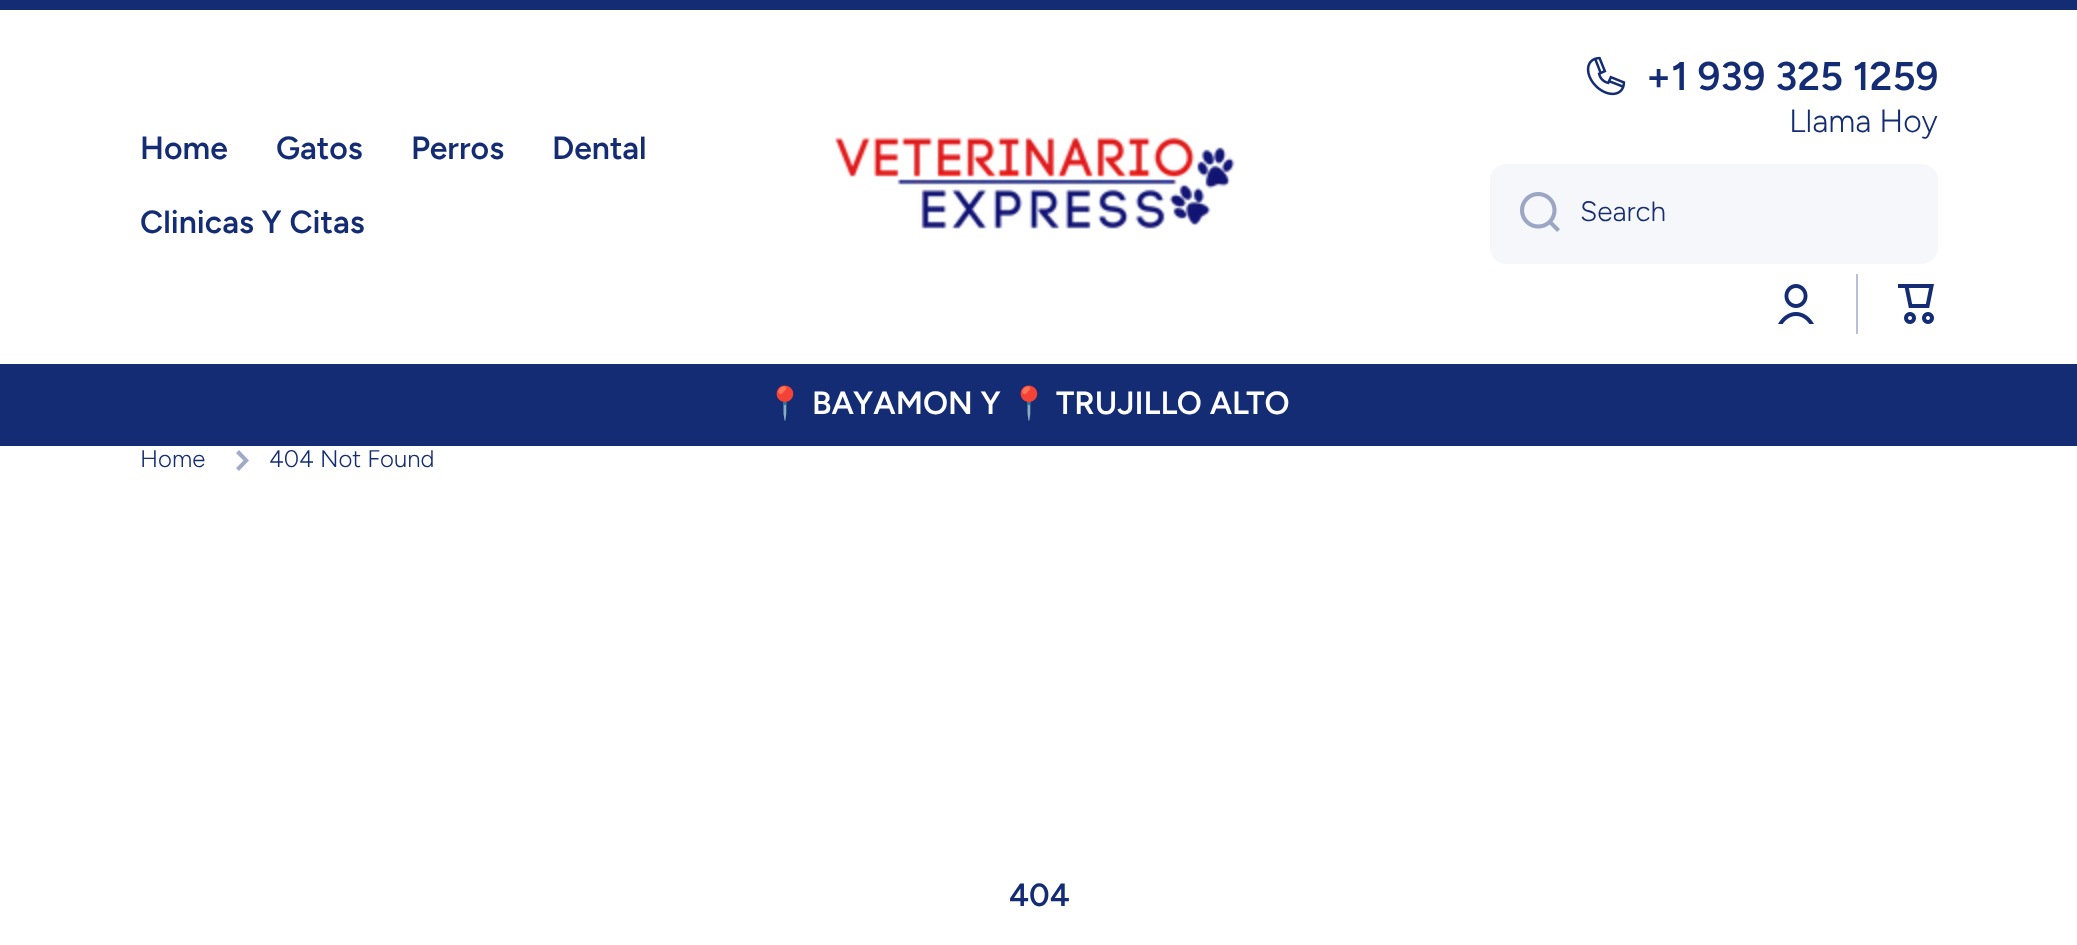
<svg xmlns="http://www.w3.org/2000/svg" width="2077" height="945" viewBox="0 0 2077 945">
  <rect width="100%" height="100%" fill="rgb(255,255,255)"/>
  <rect x="0" y="0" width="2077" height="10" fill="rgb(20,44,115)"/>
  <g font-family="Figtree" font-size="32" font-weight="600" fill="rgb(20,44,115)">
    <text x="140" y="159">Home</text>
    <text x="276" y="159">Gatos</text>
    <text x="411" y="159">Perros</text>
    <text x="552" y="159">Dental</text>
    <text x="140" y="233">Clinicas Y Citas</text>
  </g>
  <image x="835" y="137" width="400" height="92" href="pic1.png"/>
  <image x="1586" y="56" width="40" height="40" href="pic2.png"/>
  <text x="1646" y="90" font-family="Figtree" font-size="40" font-weight="600" fill="rgb(20,44,115)">+1 939 325 1259</text>
  <text x="1789" y="132" font-family="Figtree" font-size="32" font-weight="300" fill="rgb(20,44,115)">Llama Hoy</text>
  <rect x="1490" y="164" width="448" height="100" rx="16" fill="rgb(246,247,250)"/>
  <image x="1520" y="192" width="40" height="40" href="pic3.png"/>
  <text x="1580" y="221" font-family="Figtree" font-size="28" font-weight="300" fill="rgb(20,44,115)">Search</text>
  <image x="1778" y="284" width="36" height="40" href="pic4.png"/>
  <rect x="1856" y="274" width="2" height="60" fill="rgb(185,192,213)"/>
  <image x="1898" y="284" width="36" height="40" href="pic5.png"/>
  <rect x="0" y="364" width="2077" height="82" fill="rgb(20,44,115)"/>
  <text x="765" y="414" font-family="Noto Color Emoji" font-size="32" font-weight="bold" fill="rgb(255,255,255)">📍</text>
  <text x="812" y="414" font-family="Figtree" font-size="32" font-weight="600" fill="rgb(255,255,255)">BAYAMON Y</text>
  <text x="1009" y="414" font-family="Noto Color Emoji" font-size="32" font-weight="bold" fill="rgb(255,255,255)">📍</text>
  <text x="1056" y="414" font-family="Figtree" font-size="32" font-weight="600" fill="rgb(255,255,255)">TRUJILLO ALTO</text>
  <text x="140" y="467" font-family="Figtree" font-size="24" font-weight="300" fill="rgb(20,44,115)">Home</text>
  <path d="M243.5 460.5L236 453L239 450L249 460.5L239 471L236 468Z" fill="rgb(161,171,199)" fill-rule="evenodd"/>
  <text x="269" y="467" font-family="Figtree" font-size="24" font-weight="300" fill="rgb(20,44,115)">404 Not Found</text>
  <text x="1009" y="906" font-family="Figtree" font-size="32" font-weight="600" fill="rgb(20,44,115)">404</text>
</svg>
